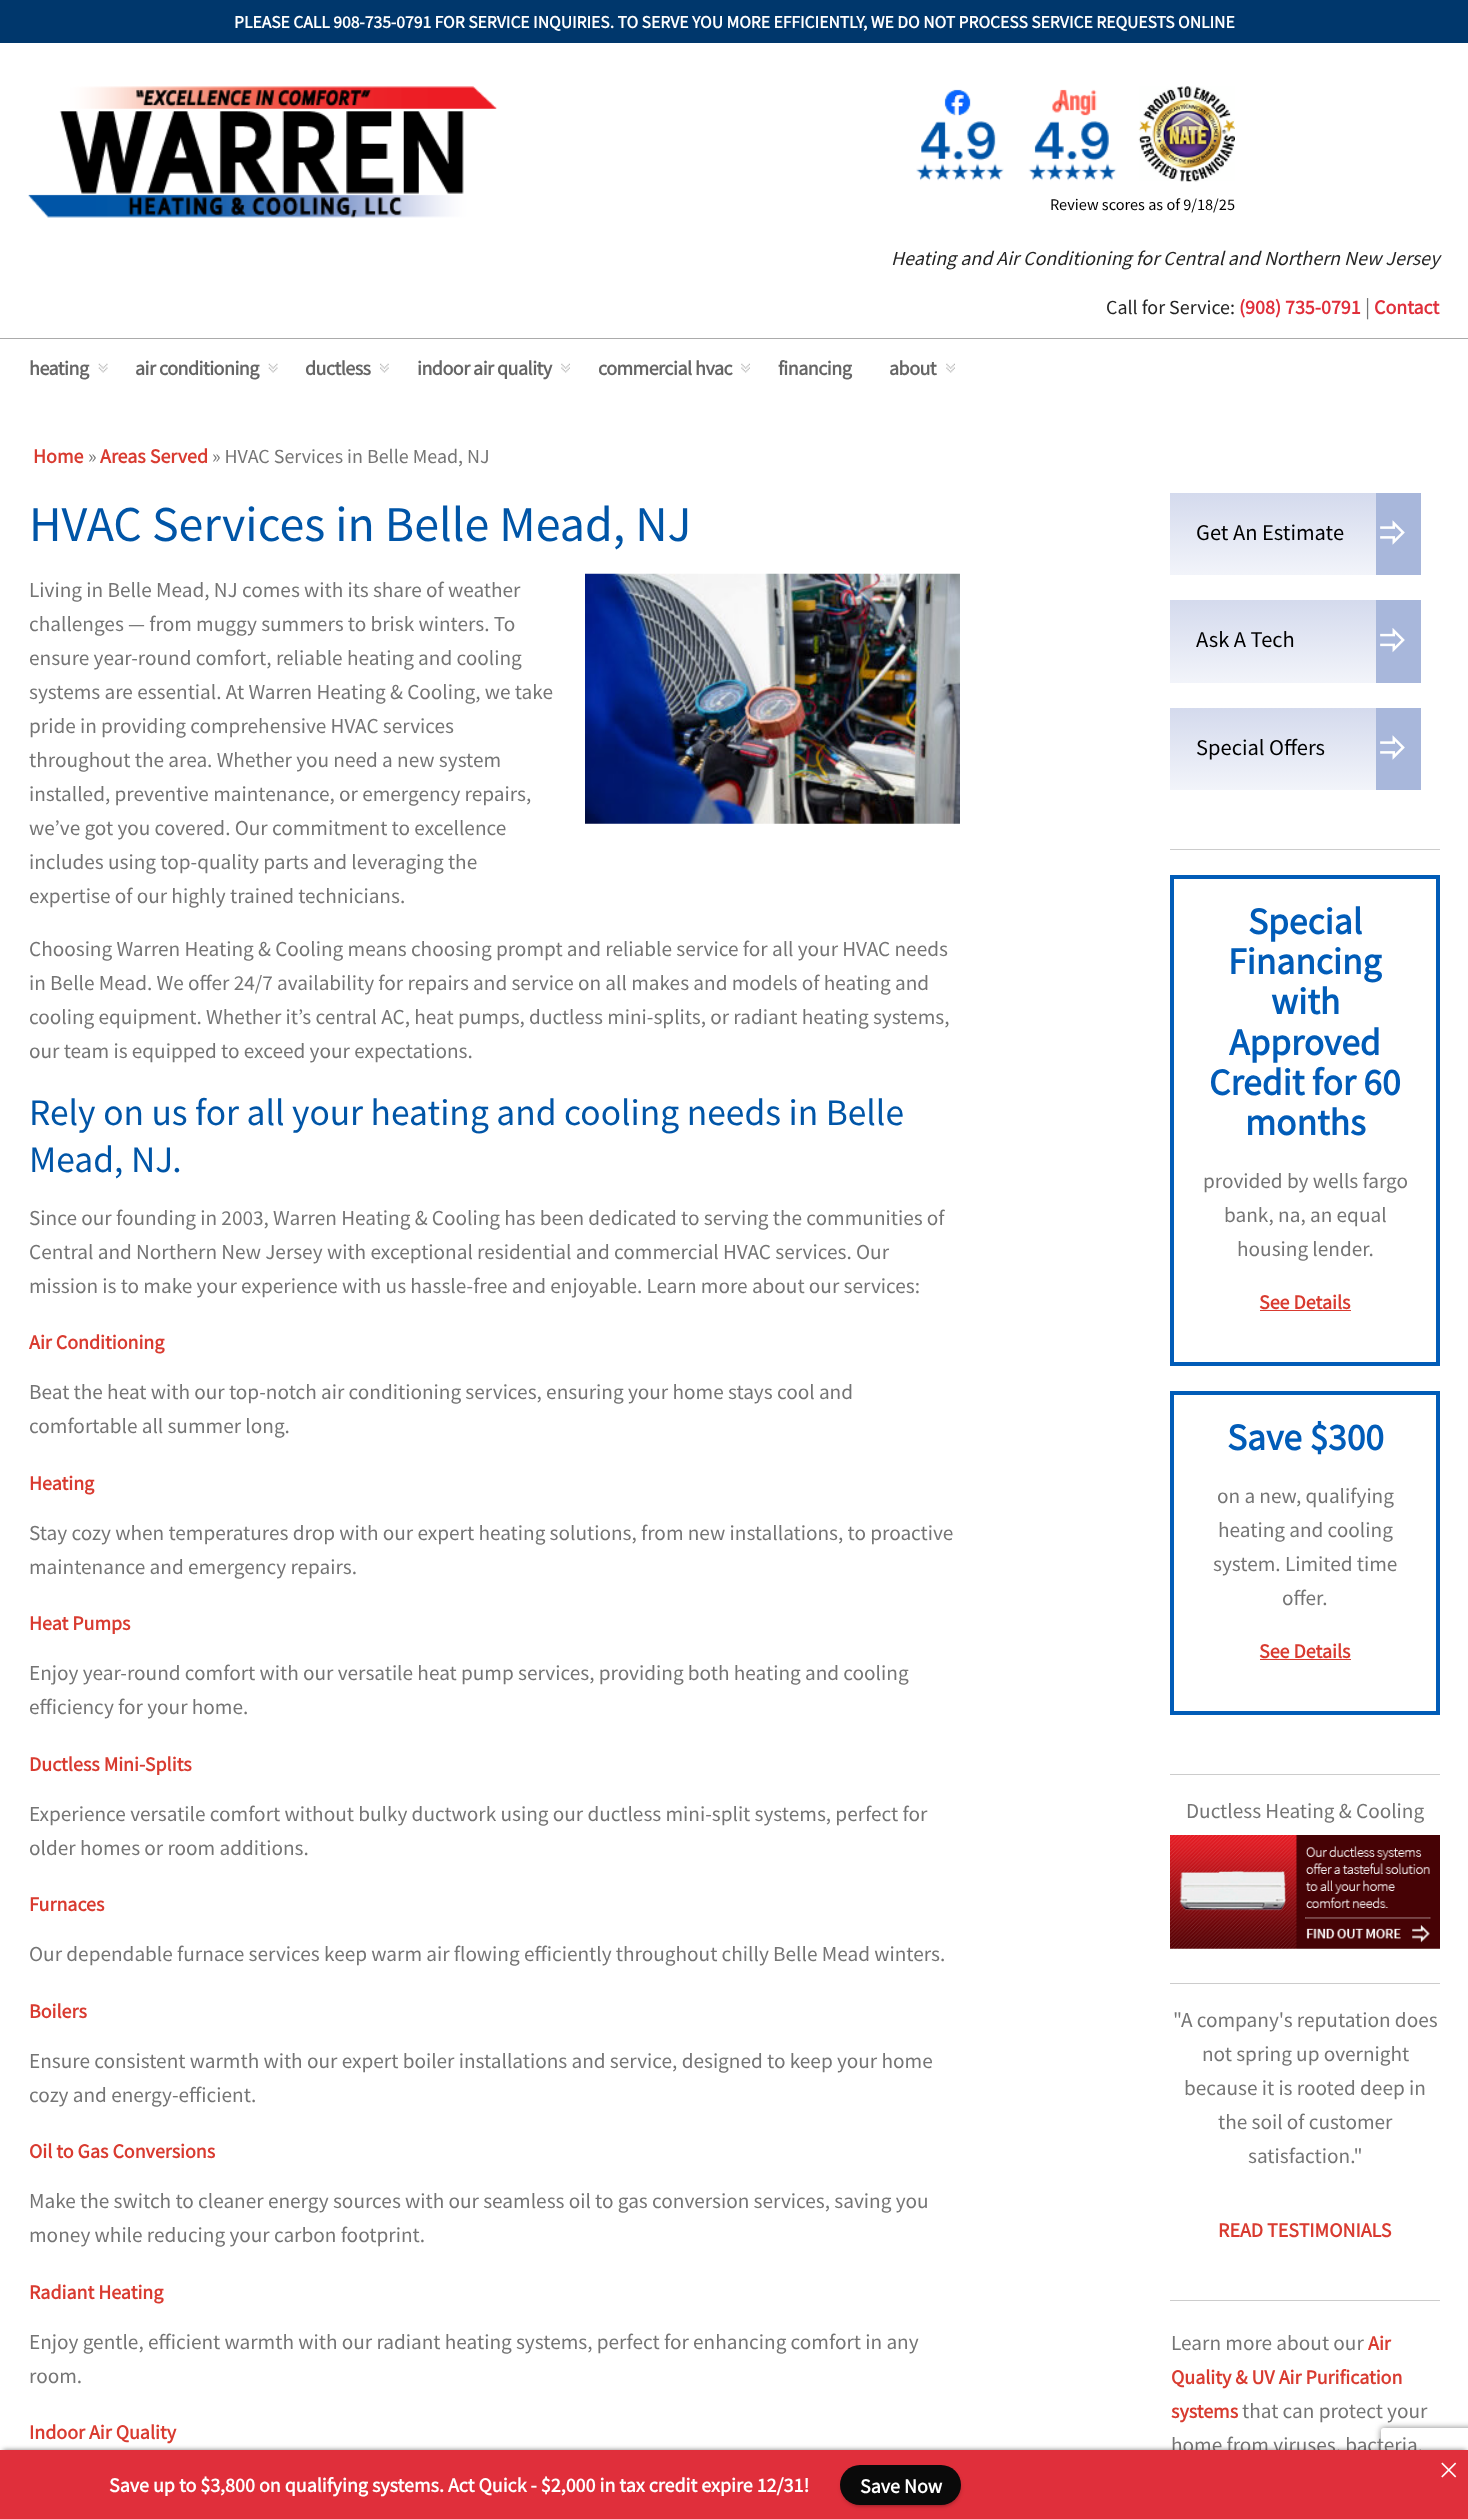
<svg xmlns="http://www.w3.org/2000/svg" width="1468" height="2519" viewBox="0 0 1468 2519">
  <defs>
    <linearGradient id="g1" gradientUnits="userSpaceOnUse" x1="1273" y1="493" x2="1273" y2="575"><stop offset="0" stop-color="rgb(212,218,237)"/><stop offset="1" stop-color="rgb(242,244,250)"/></linearGradient>
    <linearGradient id="g2" gradientUnits="userSpaceOnUse" x1="1273" y1="600" x2="1273" y2="683"><stop offset="0" stop-color="rgb(212,218,237)"/><stop offset="1" stop-color="rgb(242,244,250)"/></linearGradient>
    <linearGradient id="g3" gradientUnits="userSpaceOnUse" x1="1273" y1="708" x2="1273" y2="790"><stop offset="0" stop-color="rgb(212,218,237)"/><stop offset="1" stop-color="rgb(242,244,250)"/></linearGradient>
    <clipPath id="clip1"><path d="M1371 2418H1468V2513H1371ZM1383.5 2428H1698.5C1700 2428 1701 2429 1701 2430.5V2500.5C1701 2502 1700 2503 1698.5 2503H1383.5C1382 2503 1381 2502 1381 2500.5V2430.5C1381 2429 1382 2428 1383.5 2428Z" clip-rule="evenodd"/></clipPath>
  </defs>
  <rect width="100%" height="100%" fill="rgb(255,255,255)"/>
  <rect x="0" y="0" width="1468" height="43" fill="rgb(0,55,108)"/>
  <text x="234" y="28" font-family="Source Sans Pro" font-size="17.5" font-weight="bold" fill="rgb(255,255,255)">PLEASE CALL 908-735-0791 FOR SERVICE INQUIRIES. TO SERVE YOU MORE EFFICIENTLY, WE DO NOT PROCESS SERVICE REQUESTS ONLINE</text>
  <image x="28" y="86" width="469" height="132" href="pic1.png"/>
  <image x="916" y="86" width="319" height="96" href="pic2.png"/>
  <text x="1050" y="210" font-family="Source Sans Pro" font-size="16.25" fill="rgb(0,0,0)">Review scores as of 9/18/25</text>
  <text x="891" y="265" font-family="Source Sans Pro" font-size="20" font-style="italic" fill="rgb(37,37,37)">Heating and Air Conditioning for Central and Northern New Jersey</text>
  <text x="1106" y="314" font-family="Source Sans Pro" font-size="20" fill="rgb(37,37,37)">Call for Service:</text>
  <text x="1239" y="314" font-family="Source Sans Pro" font-size="20" font-weight="bold" fill="rgb(224,47,59)">(908) 735-0791</text>
  <text x="1365" y="314" font-family="Source Sans Pro" font-size="21.25" fill="rgb(117,117,117)">|</text>
  <text x="1374" y="314" font-family="Source Sans Pro" font-size="20" font-weight="bold" fill="rgb(224,47,59)">Contact</text>
  <rect x="0" y="338" width="1468" height="1" fill="rgb(171,171,171)"/>
  <text x="29" y="375" font-family="Source Sans Pro" font-size="20" font-weight="bold" letter-spacing="-0.5" fill="rgb(102,102,102)">heating</text>
  <image x="98" y="363" width="10" height="10" href="pic3.png"/>
  <text x="135" y="375" font-family="Source Sans Pro" font-size="20" font-weight="bold" letter-spacing="-0.5" fill="rgb(102,102,102)">air conditioning</text>
  <image x="268" y="363" width="10" height="10" href="pic4.png"/>
  <text x="305" y="375" font-family="Source Sans Pro" font-size="20" font-weight="bold" letter-spacing="-0.5" fill="rgb(102,102,102)">ductless</text>
  <image x="380" y="363" width="9" height="10" href="pic5.png"/>
  <text x="417" y="375" font-family="Source Sans Pro" font-size="20" font-weight="bold" letter-spacing="-0.5" fill="rgb(102,102,102)">indoor air quality</text>
  <image x="561" y="363" width="9" height="10" href="pic6.png"/>
  <text x="598" y="375" font-family="Source Sans Pro" font-size="20" font-weight="bold" letter-spacing="-0.5" fill="rgb(102,102,102)">commercial hvac</text>
  <image x="741" y="363" width="9" height="10" href="pic6.png"/>
  <g font-family="Source Sans Pro" font-size="20" font-weight="bold" letter-spacing="-0.5" fill="rgb(102,102,102)">
    <text x="778" y="375">financing</text>
    <text x="889" y="375">about</text>
  </g>
  <image x="946" y="363" width="9" height="10" href="pic6.png"/>
  <text x="33" y="463" font-family="Source Sans Pro" font-size="20" font-weight="bold" fill="rgb(217,59,48)">Home</text>
  <text x="88" y="463" font-family="Source Sans Pro" font-size="20" fill="rgb(117,117,117)">»</text>
  <text x="100" y="463" font-family="Source Sans Pro" font-size="20" font-weight="bold" fill="rgb(217,59,48)">Areas Served</text>
  <text x="212" y="463" font-family="Source Sans Pro" font-size="20" fill="rgb(117,117,117)">» HVAC Services in Belle Mead, NJ</text>
  <text x="29" y="541" font-family="Source Sans Pro" font-size="50" fill="rgb(0,85,167)">HVAC Services in Belle Mead, NJ</text>
  <text x="29" y="597" font-family="Source Sans Pro" font-size="21.25" fill="rgb(117,117,117)">Living in Belle Mead, NJ comes with its share of weather</text>
  <image x="585" y="573" width="375" height="251" href="pic7.png"/>
  <g font-family="Source Sans Pro" font-size="21.25" fill="rgb(117,117,117)">
    <text>
      <tspan x="29" y="631">challenges — from muggy summers to brisk winters. To</tspan>
      <tspan x="29" y="665">ensure year-round comfort, reliable heating and cooling</tspan>
      <tspan x="29" y="699">systems are essential. At Warren Heating &amp; Cooling, we take</tspan>
      <tspan x="29" y="733">pride in providing comprehensive HVAC services</tspan>
      <tspan x="29" y="767">throughout the area. Whether you need a new system</tspan>
      <tspan x="29" y="801">installed, preventive maintenance, or emergency repairs,</tspan>
      <tspan x="29" y="835">we’ve got you covered. Our commitment to excellence</tspan>
      <tspan x="29" y="869">includes using top-quality parts and leveraging the</tspan>
      <tspan x="29" y="903">expertise of our highly trained technicians.</tspan>
    </text>
    <text>
      <tspan x="29" y="956">Choosing Warren Heating &amp; Cooling means choosing prompt and reliable service for all your HVAC needs</tspan>
      <tspan x="29" y="990">in Belle Mead. We offer 24/7 availability for repairs and service on all makes and models of heating and</tspan>
      <tspan x="29" y="1024">cooling equipment. Whether it’s central AC, heat pumps, ductless mini-splits, or radiant heating systems,</tspan>
      <tspan x="29" y="1058">our team is equipped to exceed your expectations.</tspan>
    </text>
  </g>
  <g font-family="Source Sans Pro" font-size="37.5" fill="rgb(0,85,167)">
    <text>
      <tspan x="29" y="1125">Rely on us for all your heating and cooling needs in Belle</tspan>
      <tspan x="29" y="1172">Mead, NJ.</tspan>
    </text>
  </g>
  <g font-family="Source Sans Pro" font-size="21.25" fill="rgb(117,117,117)">
    <text>
      <tspan x="29" y="1225">Since our founding in 2003, Warren Heating &amp; Cooling has been dedicated to serving the communities of</tspan>
      <tspan x="29" y="1259">Central and Northern New Jersey with exceptional residential and commercial HVAC services. Our</tspan>
      <tspan x="29" y="1293">mission is to make your experience with us hassle-free and enjoyable. Learn more about our services:</tspan>
    </text>
  </g>
  <text x="29" y="1349" font-family="Source Sans Pro" font-size="20" font-weight="bold" fill="rgb(217,59,48)">Air Conditioning</text>
  <g font-family="Source Sans Pro" font-size="21.25" fill="rgb(117,117,117)">
    <text>
      <tspan x="29" y="1399">Beat the heat with our top-notch air conditioning services, ensuring your home stays cool and</tspan>
      <tspan x="29" y="1433">comfortable all summer long.</tspan>
    </text>
  </g>
  <text x="29" y="1490" font-family="Source Sans Pro" font-size="20" font-weight="bold" fill="rgb(217,59,48)">Heating</text>
  <g font-family="Source Sans Pro" font-size="21.25" fill="rgb(117,117,117)">
    <text>
      <tspan x="29" y="1540">Stay cozy when temperatures drop with our expert heating solutions, from new installations, to proactive</tspan>
      <tspan x="29" y="1574">maintenance and emergency repairs.</tspan>
    </text>
  </g>
  <text x="29" y="1630" font-family="Source Sans Pro" font-size="20" font-weight="bold" fill="rgb(217,59,48)">Heat Pumps</text>
  <g font-family="Source Sans Pro" font-size="21.25" fill="rgb(117,117,117)">
    <text>
      <tspan x="29" y="1680">Enjoy year-round comfort with our versatile heat pump services, providing both heating and cooling</tspan>
      <tspan x="29" y="1714">efficiency for your home.</tspan>
    </text>
  </g>
  <text x="29" y="1771" font-family="Source Sans Pro" font-size="20" font-weight="bold" fill="rgb(217,59,48)">Ductless Mini-Splits</text>
  <g font-family="Source Sans Pro" font-size="21.25" fill="rgb(117,117,117)">
    <text>
      <tspan x="29" y="1821">Experience versatile comfort without bulky ductwork using our ductless mini-split systems, perfect for</tspan>
      <tspan x="29" y="1855">older homes or room additions.</tspan>
    </text>
  </g>
  <text x="29" y="1911" font-family="Source Sans Pro" font-size="20" font-weight="bold" fill="rgb(217,59,48)">Furnaces</text>
  <text x="29" y="1961" font-family="Source Sans Pro" font-size="21.25" fill="rgb(117,117,117)">Our dependable furnace services keep warm air flowing efficiently throughout chilly Belle Mead winters.</text>
  <text x="29" y="2018" font-family="Source Sans Pro" font-size="20" font-weight="bold" fill="rgb(217,59,48)">Boilers</text>
  <g font-family="Source Sans Pro" font-size="21.25" fill="rgb(117,117,117)">
    <text>
      <tspan x="29" y="2068">Ensure consistent warmth with our expert boiler installations and service, designed to keep your home</tspan>
      <tspan x="29" y="2102">cozy and energy-efficient.</tspan>
    </text>
  </g>
  <text x="29" y="2158" font-family="Source Sans Pro" font-size="20" font-weight="bold" fill="rgb(217,59,48)">Oil to Gas Conversions</text>
  <g font-family="Source Sans Pro" font-size="21.25" fill="rgb(117,117,117)">
    <text>
      <tspan x="29" y="2208">Make the switch to cleaner energy sources with our seamless oil to gas conversion services, saving you</tspan>
      <tspan x="29" y="2242">money while reducing your carbon footprint.</tspan>
    </text>
  </g>
  <text x="29" y="2299" font-family="Source Sans Pro" font-size="20" font-weight="bold" fill="rgb(217,59,48)">Radiant Heating</text>
  <g font-family="Source Sans Pro" font-size="21.25" fill="rgb(117,117,117)">
    <text>
      <tspan x="29" y="2349">Enjoy gentle, efficient warmth with our radiant heating systems, perfect for enhancing comfort in any</tspan>
      <tspan x="29" y="2383">room.</tspan>
    </text>
  </g>
  <text x="29" y="2439" font-family="Source Sans Pro" font-size="20" font-weight="bold" fill="rgb(217,59,48)">Indoor Air Quality</text>
  <rect x="1170" y="493" width="206" height="82" fill="url(#g1)"/>
  <text x="1196" y="540" font-family="Source Sans Pro" font-size="22.5" fill="rgb(0,0,0)">Get An Estimate</text>
  <rect x="1376" y="493" width="45" height="82" fill="rgb(168,183,219)"/>
  <image x="1380" y="520" width="25" height="25" href="pic8.png"/>
  <rect x="1170" y="600" width="206" height="83" fill="url(#g2)"/>
  <text x="1196" y="647" font-family="Source Sans Pro" font-size="22.5" fill="rgb(0,0,0)">Ask A Tech</text>
  <rect x="1376" y="600" width="45" height="83" fill="rgb(168,183,219)"/>
  <image x="1380" y="628" width="25" height="25" href="pic9.png"/>
  <rect x="1170" y="708" width="206" height="82" fill="url(#g3)"/>
  <text x="1196" y="755" font-family="Source Sans Pro" font-size="22.5" fill="rgb(0,0,0)">Special Offers</text>
  <rect x="1376" y="708" width="45" height="82" fill="rgb(168,183,219)"/>
  <image x="1380" y="735" width="25" height="25" href="pic8.png"/>
  <rect x="1170" y="849" width="270" height="1" fill="rgb(204,204,204)"/>
  <rect x="1172" y="877" width="266" height="487" fill="none" stroke="rgb(1,92,184)" stroke-width="4"/>
  <g font-family="Source Sans Pro" font-size="37.5" font-weight="bold" fill="rgb(1,92,184)">
    <text x="1248" y="934">Special</text>
    <text x="1228" y="974">Financing</text>
    <text x="1271" y="1014">with</text>
    <text x="1229" y="1055">Approved</text>
    <text x="1209" y="1095">Credit for 60</text>
    <text x="1245" y="1135">months</text>
  </g>
  <g font-family="Source Sans Pro" font-size="21.25" fill="rgb(117,117,117)">
    <text x="1203" y="1188">provided by wells fargo</text>
    <text x="1224" y="1222">bank, na, an equal</text>
    <text x="1237" y="1256">housing lender.</text>
  </g>
  <text x="1259" y="1309" font-family="Source Sans Pro" font-size="20" font-weight="bold" fill="rgb(217,59,48)">See Details</text>
  <rect x="1260" y="1310" width="91" height="1" fill="rgb(217,58,48)"/>
  <rect x="1172" y="1393" width="266" height="320" fill="none" stroke="rgb(1,92,184)" stroke-width="4"/>
  <text x="1227" y="1450" font-family="Source Sans Pro" font-size="37.5" font-weight="bold" fill="rgb(1,92,184)">Save $300</text>
  <g font-family="Source Sans Pro" font-size="21.25" fill="rgb(117,117,117)">
    <text x="1217" y="1503">on a new, qualifying</text>
    <text x="1218" y="1537">heating and cooling</text>
    <text x="1213" y="1571">system. Limited time</text>
    <text x="1282" y="1605">offer.</text>
  </g>
  <text x="1259" y="1658" font-family="Source Sans Pro" font-size="20" font-weight="bold" fill="rgb(217,59,48)">See Details</text>
  <rect x="1260" y="1659" width="91" height="1" fill="rgb(217,58,48)"/>
  <rect x="1170" y="1774" width="270" height="1" fill="rgb(204,204,204)"/>
  <text x="1186" y="1818" font-family="Source Sans Pro" font-size="21.25" fill="rgb(117,117,117)">Ductless Heating &amp; Cooling</text>
  <image x="1170" y="1835" width="270" height="114" href="pic10.png"/>
  <rect x="1170" y="1983" width="270" height="1" fill="rgb(204,204,204)"/>
  <g font-family="Source Sans Pro" font-size="21.25" fill="rgb(117,117,117)">
    <text x="1173" y="2027">"A company's reputation does</text>
    <text x="1202" y="2061">not spring up overnight</text>
    <text x="1184" y="2095">because it is rooted deep in</text>
    <text x="1218" y="2129">the soil of customer</text>
    <text x="1248" y="2163">satisfaction."</text>
  </g>
  <text x="1218" y="2237" font-family="Source Sans Pro" font-size="20" font-weight="bold" fill="rgb(217,59,48)">READ TESTIMONIALS</text>
  <rect x="1170" y="2300" width="270" height="1" fill="rgb(204,204,204)"/>
  <text x="1171" y="2350" font-family="Source Sans Pro" font-size="21.25" fill="rgb(117,117,117)">Learn more about our</text>
  <g font-family="Source Sans Pro" font-size="20" font-weight="bold" fill="rgb(217,59,48)">
    <text x="1368" y="2350">Air</text>
    <text>
      <tspan x="1171" y="2384">Quality &amp; UV Air Purification</tspan>
      <tspan x="1171" y="2418">systems</tspan>
    </text>
  </g>
  <g font-family="Source Sans Pro" font-size="21.25" fill="rgb(117,117,117)">
    <text x="1242" y="2418">that can protect your</text>
    <text x="1171" y="2452">home from viruses, bacteria,</text>
  </g>
  <rect x="3" y="2450" width="1463" height="65" fill="rgba(0,0,0,0.5)" filter="blur(2.5px)"/>
  <g clip-path="url(#clip1)">
    <rect x="1381" y="2428" width="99" height="75" rx="2.5" fill="rgb(128,128,128)" filter="blur(3px)"/>
  </g>
  <rect x="0" y="2450" width="1468" height="69" fill="rgb(224,47,59)"/>
  <image x="1441" y="2462" width="16" height="16" href="pic11.png"/>
  <text x="109" y="2492" font-family="Source Sans Pro" font-size="20" font-weight="bold" fill="rgb(255,255,255)">Save up to $3,800 on qualifying systems. Act Quick - $2,000 in tax credit expire 12/31!</text>
  <rect x="843" y="2470" width="116" height="35" rx="17.5" fill="rgba(0,0,0,0.5)" filter="blur(2.5px)"/>
  <rect x="840" y="2465" width="121" height="40" rx="20" fill="rgb(10,10,10)"/>
  <text x="860" y="2493" font-family="Source Sans Pro" font-size="20" font-weight="bold" fill="rgb(255,255,255)">Save Now</text>
</svg>
